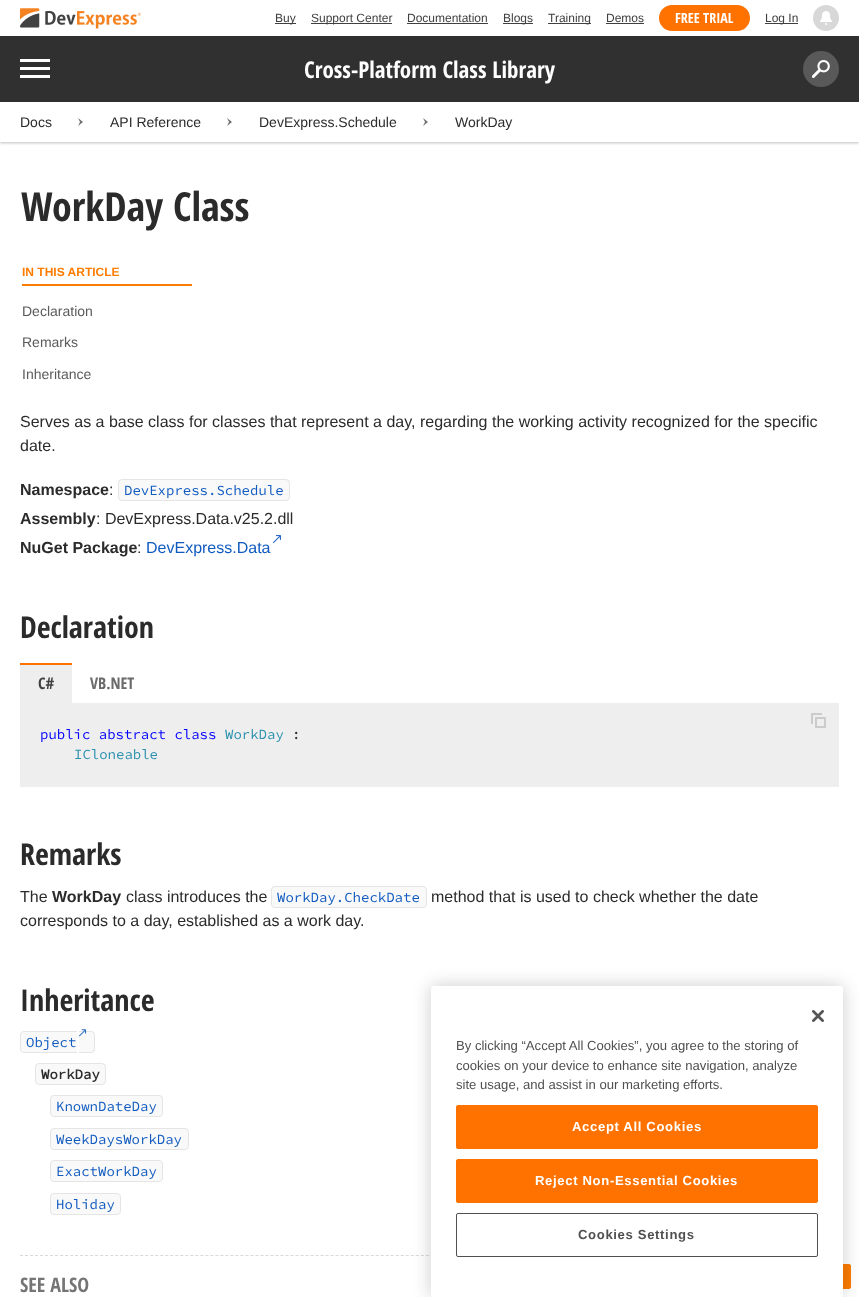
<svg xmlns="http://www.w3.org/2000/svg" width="859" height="1297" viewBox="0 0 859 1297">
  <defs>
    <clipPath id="clip1"><path d="M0 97H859V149H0ZM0 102H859V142H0Z" clip-rule="evenodd"/></clipPath>
  </defs>
  <rect width="100%" height="100%" fill="rgb(255,255,255)"/>
  <image x="20" y="8" width="121" height="21" href="pic1.png"/>
  <rect x="275" y="23" width="21" height="1" fill="rgb(64,64,64)"/>
  <text x="275" y="22" font-family="Liberation Sans" font-size="12" fill="rgb(64,64,64)">Buy</text>
  <rect x="311" y="23" width="81" height="1" fill="rgb(64,64,64)"/>
  <g font-family="Liberation Sans" font-size="12" fill="rgb(64,64,64)">
    <text x="311" y="22">Support Center</text>
    <text x="407" y="22">Documentation</text>
  </g>
  <rect x="407" y="23" width="81" height="1" fill="rgb(64,64,64)"/>
  <rect x="503" y="23" width="30" height="1" fill="rgb(64,64,64)"/>
  <text x="503" y="22" font-family="Liberation Sans" font-size="12" fill="rgb(64,64,64)">Blogs</text>
  <rect x="548" y="23" width="43" height="1" fill="rgb(64,64,64)"/>
  <g font-family="Liberation Sans" font-size="12" fill="rgb(64,64,64)">
    <text x="548" y="22">Training</text>
    <text x="606" y="22">Demos</text>
  </g>
  <rect x="606" y="23" width="38" height="1" fill="rgb(64,64,64)"/>
  <rect x="660" y="6" width="89" height="24" rx="12" fill="rgb(255,114,0)" stroke="rgb(255,114,0)" stroke-width="2"/>
  <text x="675" y="23" font-family="'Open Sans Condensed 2'" font-size="14" font-weight="bold" fill="rgb(255,255,255)">FREE TRIAL</text>
  <rect x="765" y="23" width="33" height="1" fill="rgb(64,64,64)"/>
  <text x="765" y="22" font-family="Liberation Sans" font-size="12" fill="rgb(64,64,64)">Log In</text>
  <circle cx="826" cy="18" r="13" fill="rgb(216,216,216)"/>
  <image x="820" y="11" width="12" height="14" href="pic2.png"/>
  <rect x="0" y="36" width="859" height="66" fill="rgb(48,48,48)"/>
  <image x="20" y="59" width="30" height="19" href="pic3.png"/>
  <text x="304" y="78" font-family="Open Sans Condensed" font-size="23" font-weight="bold" fill="rgb(255,255,255)">Cross-Platform Class Library</text>
  <circle cx="821" cy="69" r="18" fill="rgb(89,89,89)"/>
  <image x="812" y="60" width="18" height="18" href="pic4.png"/>
  <g clip-path="url(#clip1)">
    <rect x="0" y="103" width="859" height="40" fill="rgba(0,0,0,0.25)" filter="blur(1.5px)"/>
  </g>
  <text x="20" y="127" font-family="Liberation Sans" font-size="14" fill="rgb(43,43,43)">Docs</text>
  <path d="M78 118L80 122L78 126L83 122Z" fill="rgb(112,112,112)" fill-rule="evenodd"/>
  <text x="110" y="127" font-family="Liberation Sans" font-size="14" fill="rgb(43,43,43)">API Reference</text>
  <path d="M227 118L229 122L227 126L232 122Z" fill="rgb(112,112,112)" fill-rule="evenodd"/>
  <text x="259" y="127" font-family="Liberation Sans" font-size="14" fill="rgb(43,43,43)">DevExpress.Schedule</text>
  <path d="M423 118L425 122L423 126L428 122Z" fill="rgb(112,112,112)" fill-rule="evenodd"/>
  <text x="455" y="127" font-family="Liberation Sans" font-size="14" fill="rgb(43,43,43)">WorkDay</text>
  <text x="21" y="221" font-family="Open Sans Condensed" font-size="40" font-weight="bold" fill="rgb(43,43,43)">WorkDay Class</text>
  <rect x="22" y="284" width="170" height="2" fill="rgb(254,124,0)"/>
  <text x="22" y="276" font-family="Liberation Sans" font-size="12" font-weight="bold" fill="rgb(254,124,0)">IN THIS ARTICLE</text>
  <g font-family="Liberation Sans" font-size="14" fill="rgb(91,91,91)">
    <text x="22" y="316">Declaration</text>
    <text x="22" y="347">Remarks</text>
    <text x="22" y="379">Inheritance</text>
  </g>
  <g font-family="Liberation Sans" font-size="16" fill="rgb(43,43,43)">
    <text>
      <tspan x="20" y="427">Serves as a base class for classes that represent a day, regarding the working activity recognized for the specific</tspan>
      <tspan x="20" y="451">date.</tspan>
    </text>
  </g>
  <text x="20" y="495" font-family="Liberation Sans" font-size="16" font-weight="bold" fill="rgb(43,43,43)">Namespace</text>
  <text x="109" y="495" font-family="Liberation Sans" font-size="16" fill="rgb(43,43,43)">:</text>
  <rect x="118.5" y="479.5" width="171" height="21" rx="3.5" fill="rgb(249,249,249)" stroke="rgb(229,229,229)"/>
  <text x="124" y="495" font-family="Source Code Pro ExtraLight" font-size="14" font-weight="200" fill="rgb(17,91,192)">DevExpress.Schedule</text>
  <text x="20" y="524" font-family="Liberation Sans" font-size="16" font-weight="bold" fill="rgb(43,43,43)">Assembly</text>
  <text x="96" y="524" font-family="Liberation Sans" font-size="16" fill="rgb(43,43,43)">: DevExpress.Data.v25.2.dll</text>
  <image x="273" y="535" width="8" height="8" href="pic5.png"/>
  <text x="20" y="553" font-family="Liberation Sans" font-size="16" font-weight="bold" fill="rgb(43,43,43)">NuGet Package</text>
  <text x="137" y="553" font-family="Liberation Sans" font-size="16" fill="rgb(43,43,43)">:</text>
  <text x="146" y="553" font-family="Liberation Sans" font-size="16" fill="rgb(17,91,192)">DevExpress.Data</text>
  <text x="20" y="638" font-family="Open Sans Condensed" font-size="30" font-weight="bold" fill="rgb(43,43,43)">Declaration</text>
  <rect x="20" y="665" width="52" height="38" fill="rgb(238,238,238)"/>
  <rect x="20" y="663" width="52" height="2" fill="rgb(255,114,0)"/>
  <text x="38" y="689" font-family="Open Sans Condensed" font-size="16" font-weight="bold" fill="rgb(64,64,64)">C#</text>
  <text x="90" y="689" font-family="Open Sans Condensed" font-size="16" font-weight="bold" fill="rgb(107,107,107)">VB.NET</text>
  <rect x="20" y="703" width="819" height="84" fill="rgb(238,238,238)"/>
  <image x="811" y="713" width="15" height="15" href="pic6.png"/>
  <text x="40" y="739" font-family="Source Code Pro ExtraLight" font-size="14" font-weight="200" fill="rgb(0,0,255)">public abstract class</text>
  <text x="225" y="739" font-family="Source Code Pro ExtraLight" font-size="14" font-weight="200" fill="rgb(43,145,175)">WorkDay</text>
  <text x="292" y="739" font-family="Source Code Pro ExtraLight" font-size="14" font-weight="200" fill="rgb(43,43,43)">:</text>
  <text x="74" y="759" font-family="Source Code Pro ExtraLight" font-size="14" font-weight="200" fill="rgb(43,145,175)">ICloneable</text>
  <text x="20" y="865" font-family="Open Sans Condensed" font-size="30" font-weight="bold" fill="rgb(43,43,43)">Remarks</text>
  <text x="20" y="902" font-family="Liberation Sans" font-size="16" fill="rgb(43,43,43)">The</text>
  <text x="52" y="902" font-family="Liberation Sans" font-size="16" font-weight="bold" fill="rgb(43,43,43)">WorkDay</text>
  <text x="126" y="902" font-family="Liberation Sans" font-size="16" fill="rgb(43,43,43)">class introduces the</text>
  <rect x="271.5" y="886.5" width="155" height="21" rx="3.5" fill="rgb(249,249,249)" stroke="rgb(229,229,229)"/>
  <text x="277" y="902" font-family="Source Code Pro ExtraLight" font-size="14" font-weight="200" fill="rgb(17,91,192)">WorkDay.CheckDate</text>
  <g font-family="Liberation Sans" font-size="16" fill="rgb(43,43,43)">
    <text x="431" y="902">method that is used to check whether the date</text>
    <text x="20" y="926">corresponds to a day, established as a work day.</text>
  </g>
  <text x="20" y="1011" font-family="Open Sans Condensed" font-size="30" font-weight="bold" fill="rgb(43,43,43)">Inheritance</text>
  <path d="M79 1031H91C93 1031 95 1033 95 1035V1049C95 1051 93 1053 91 1053H79Z" fill="rgb(249,249,249)"/>
  <path d="M79 1031H91C93 1031 95 1033 95 1035V1049C95 1051 93 1053 91 1053H79ZM79 1032H91C92.5 1032 94 1033.5 94 1035V1049C94 1050.5 92.5 1052 91 1052H79Z" fill="rgb(229,229,229)" fill-rule="evenodd"/>
  <image x="79" y="1029" width="8" height="8" href="pic7.png"/>
  <path d="M24 1031H77V1053H24C22 1053 20 1051 20 1049V1035C20 1033 22 1031 24 1031Z" fill="rgb(249,249,249)"/>
  <path d="M24 1031H77V1053H24C22 1053 20 1051 20 1049V1035C20 1033 22 1031 24 1031ZM24 1032H77V1052H24C22 1052 21 1051 21 1049V1035C21 1033 22 1032 24 1032Z" fill="rgb(229,229,229)" fill-rule="evenodd"/>
  <text x="26" y="1047" font-family="Source Code Pro ExtraLight" font-size="14" font-weight="200" fill="rgb(17,91,192)">Object</text>
  <rect x="35.5" y="1063.5" width="70" height="21" rx="3.5" fill="rgb(249,249,249)" stroke="rgb(229,229,229)"/>
  <text x="41" y="1079" font-family="Source Code Pro ExtraLight" font-size="14" font-weight="bold" fill="rgb(43,43,43)">WorkDay</text>
  <rect x="50.5" y="1095.5" width="112" height="21" rx="3.5" fill="rgb(249,249,249)" stroke="rgb(229,229,229)"/>
  <text x="56" y="1111" font-family="Source Code Pro ExtraLight" font-size="14" font-weight="200" fill="rgb(17,91,192)">KnownDateDay</text>
  <rect x="50.5" y="1128.5" width="138" height="21" rx="3.5" fill="rgb(249,249,249)" stroke="rgb(229,229,229)"/>
  <text x="56" y="1144" font-family="Source Code Pro ExtraLight" font-size="14" font-weight="200" fill="rgb(17,91,192)">WeekDaysWorkDay</text>
  <rect x="50.5" y="1160.5" width="112" height="21" rx="3.5" fill="rgb(249,249,249)" stroke="rgb(229,229,229)"/>
  <text x="56" y="1176" font-family="Source Code Pro ExtraLight" font-size="14" font-weight="200" fill="rgb(17,91,192)">ExactWorkDay</text>
  <rect x="50.5" y="1193.5" width="70" height="21" rx="3.5" fill="rgb(249,249,249)" stroke="rgb(229,229,229)"/>
  <text x="56" y="1209" font-family="Source Code Pro ExtraLight" font-size="14" font-weight="200" fill="rgb(17,91,192)">Holiday</text>
  <path d="M20 1255.5H839" fill="none" stroke="rgb(217,217,217)" stroke-dasharray="3 2.01"/>
  <text x="20" y="1292" font-family="Open Sans Condensed" font-size="20" font-weight="bold" fill="rgb(117,117,117)">SEE ALSO</text>
  <rect x="779.5" y="1264.5" width="71" height="24" rx="1.5" fill="rgb(254,124,0)" stroke="rgb(254,124,0)"/>
  <rect x="431" y="986" width="412" height="311" rx="2.5" fill="rgba(0,0,0,0.2)" filter="blur(9px)"/>
  <rect x="431" y="986" width="412" height="311" rx="2.5" fill="rgb(255,255,255)"/>
  <image x="812" y="1010" width="12" height="12" href="pic8.png"/>
  <g font-family="Liberation Sans" font-size="13.1" fill="rgb(80,80,80)">
    <text>
      <tspan x="456" y="1050">By clicking “Accept All Cookies”, you agree to the storing of</tspan>
      <tspan x="456" y="1070">cookies on your device to enhance site navigation, analyze</tspan>
      <tspan x="456" y="1089">site usage, and assist in our marketing efforts.</tspan>
    </text>
  </g>
  <rect x="456.5" y="1105.5" width="361" height="43" rx="1.5" fill="rgb(255,114,0)" stroke="rgb(255,114,0)"/>
  <text x="572" y="1131" font-family="Liberation Sans" font-size="13.1" font-weight="bold" letter-spacing="0.65" fill="rgb(255,255,255)">Accept All Cookies</text>
  <rect x="456.5" y="1159.5" width="361" height="43" rx="1.5" fill="rgb(255,114,0)" stroke="rgb(255,114,0)"/>
  <text x="535" y="1185" font-family="Liberation Sans" font-size="13.1" font-weight="bold" letter-spacing="0.65" fill="rgb(255,255,255)">Reject Non-Essential Cookies</text>
  <rect x="456.5" y="1213.5" width="361" height="43" rx="1.5" fill="none" stroke="rgb(80,80,80)"/>
  <text x="578" y="1239" font-family="Liberation Sans" font-size="13.1" font-weight="bold" letter-spacing="0.65" fill="rgb(80,80,80)">Cookies Settings</text>
</svg>
